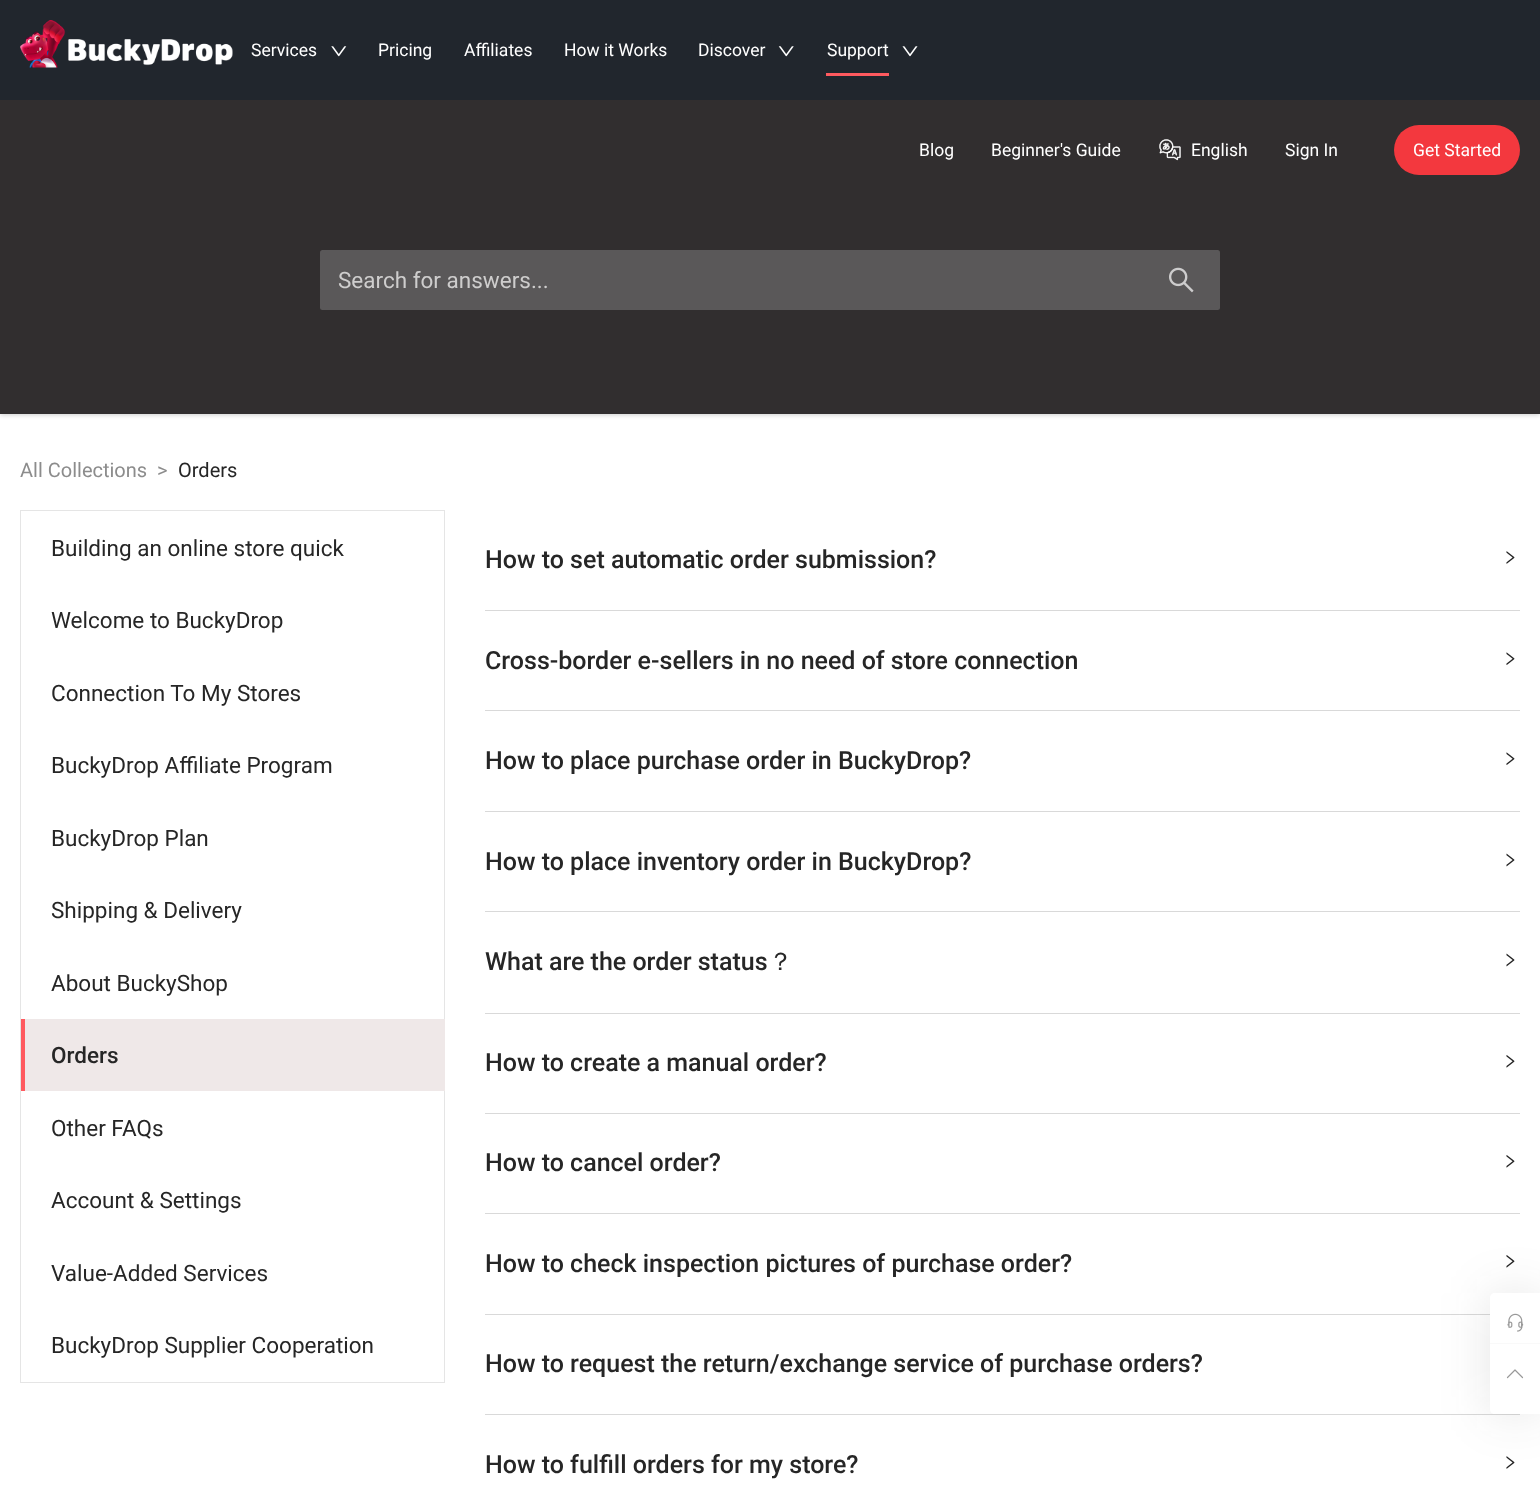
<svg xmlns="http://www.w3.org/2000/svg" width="1540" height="1507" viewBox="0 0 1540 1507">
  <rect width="100%" height="100%" fill="rgb(255,255,255)"/>
  <rect x="0" y="101" width="1540" height="314" fill="rgba(0,0,0,0.2)" filter="blur(2.5px)"/>
  <rect x="0" y="0" width="1540" height="100" fill="rgb(33,38,45)"/>
  <image x="20" y="20" width="213" height="48" href="pic1.png"/>
  <text x="251" y="56" font-family="Roboto" font-size="17.5" fill="rgb(255,255,255)">Services</text>
  <image x="331" y="46" width="16" height="11" href="pic2.png"/>
  <g font-family="Roboto" font-size="17.5" fill="rgb(255,255,255)">
    <text x="378" y="56">Pricing</text>
    <text x="464" y="56">Affiliates</text>
    <text x="564" y="56">How it Works</text>
    <text x="698" y="56">Discover</text>
  </g>
  <image x="778" y="46" width="16" height="11" href="pic3.png"/>
  <text x="827" y="56" font-family="Roboto" font-size="17.5" fill="rgb(255,255,255)">Support</text>
  <rect x="826" y="73" width="63" height="3" fill="rgb(255,90,95)"/>
  <image x="902" y="46" width="16" height="11" href="pic4.png"/>
  <rect x="0" y="100" width="1540" height="314" fill="rgb(49,46,47)"/>
  <g font-family="Roboto" font-size="17.5" fill="rgb(255,255,255)">
    <text x="919" y="156">Blog</text>
    <text x="991" y="156">Beginner's Guide</text>
  </g>
  <image x="1159" y="139" width="22" height="22" href="pic5.png"/>
  <g font-family="Roboto" font-size="17.5" fill="rgb(255,255,255)">
    <text x="1191" y="156">English</text>
    <text x="1285" y="156">Sign In</text>
  </g>
  <rect x="1394" y="125" width="126" height="50" rx="25" fill="rgb(243,56,62)"/>
  <text x="1413" y="156" font-family="Roboto" font-size="17.5" fill="rgb(255,255,255)">Get Started</text>
  <rect x="320" y="250" width="900" height="60" rx="2.5" fill="rgb(90,88,89)"/>
  <text x="338" y="288" font-family="Roboto" font-size="22.5" fill="rgb(206,205,205)">Search for answers...</text>
  <image x="1169" y="267" width="25" height="26" href="pic6.png"/>
  <g font-family="Roboto" font-size="20" fill="rgb(140,140,140)">
    <text x="20" y="477">All Collections</text>
    <text x="157" y="477">&gt;</text>
  </g>
  <text x="178" y="477" font-family="Roboto" font-size="20" fill="rgb(38,38,38)">Orders</text>
  <rect x="20.5" y="510.5" width="424" height="872" fill="none" stroke="rgb(229,229,229)"/>
  <g font-family="Roboto" font-size="22.5" fill="rgb(38,38,38)">
    <text x="51" y="556">Building an online store quick</text>
    <text x="51" y="628">Welcome to BuckyDrop</text>
    <text x="51" y="701">Connection To My Stores</text>
    <text x="51" y="773">BuckyDrop Affiliate Program</text>
    <text x="51" y="846">BuckyDrop Plan</text>
    <text x="51" y="918">Shipping &amp; Delivery</text>
    <text x="51" y="991">About BuckyShop</text>
  </g>
  <rect x="25" y="1019" width="420" height="72" fill="rgb(239,232,232)"/>
  <rect x="21" y="1019" width="4" height="72" fill="rgb(255,90,95)"/>
  <text x="51" y="1063" font-family="Roboto" font-size="22.5" font-weight="500" fill="rgb(38,38,38)">Orders</text>
  <g font-family="Roboto" font-size="22.5" fill="rgb(38,38,38)">
    <text x="51" y="1136">Other FAQs</text>
    <text x="51" y="1208">Account &amp; Settings</text>
    <text x="51" y="1281">Value-Added Services</text>
    <text x="51" y="1353">BuckyDrop Supplier Cooperation</text>
  </g>
  <rect x="485" y="610" width="1035" height="1" fill="rgb(217,217,217)"/>
  <text x="485" y="568" font-family="Roboto" font-size="25" font-weight="500" fill="rgb(38,38,38)">How to set automatic order submission?</text>
  <image x="1506" y="551" width="9" height="13" href="pic7.png"/>
  <rect x="485" y="710" width="1035" height="1" fill="rgb(217,217,217)"/>
  <text x="485" y="669" font-family="Roboto" font-size="25" font-weight="500" fill="rgb(38,38,38)">Cross-border e-sellers in no need of store connection</text>
  <image x="1506" y="652" width="9" height="13" href="pic8.png"/>
  <rect x="485" y="811" width="1035" height="1" fill="rgb(217,217,217)"/>
  <text x="485" y="769" font-family="Roboto" font-size="25" font-weight="500" fill="rgb(38,38,38)">How to place purchase order in BuckyDrop?</text>
  <image x="1506" y="752" width="9" height="13" href="pic8.png"/>
  <rect x="485" y="911" width="1035" height="1" fill="rgb(217,217,217)"/>
  <text x="485" y="870" font-family="Roboto" font-size="25" font-weight="500" fill="rgb(38,38,38)">How to place inventory order in BuckyDrop?</text>
  <image x="1506" y="853" width="9" height="14" href="pic9.png"/>
  <rect x="485" y="1013" width="1035" height="1" fill="rgb(217,217,217)"/>
  <text x="485" y="970" font-family="Roboto" font-size="25" font-weight="500" fill="rgb(38,38,38)">What are the order status</text>
  <text x="768" y="970" font-family="WenQuanYi Zen Hei" font-size="25" font-weight="500" fill="rgb(38,38,38)">？</text>
  <image x="1506" y="953" width="9" height="14" href="pic9.png"/>
  <rect x="485" y="1113" width="1035" height="1" fill="rgb(217,217,217)"/>
  <text x="485" y="1071" font-family="Roboto" font-size="25" font-weight="500" fill="rgb(38,38,38)">How to create a manual order?</text>
  <image x="1506" y="1055" width="9" height="13" href="pic10.png"/>
  <rect x="485" y="1213" width="1035" height="1" fill="rgb(217,217,217)"/>
  <text x="485" y="1171" font-family="Roboto" font-size="25" font-weight="500" fill="rgb(38,38,38)">How to cancel order?</text>
  <image x="1506" y="1155" width="9" height="13" href="pic10.png"/>
  <rect x="485" y="1314" width="1005" height="1" fill="rgb(217,217,217)"/>
  <text x="485" y="1272" font-family="Roboto" font-size="25" font-weight="500" fill="rgb(38,38,38)">How to check inspection pictures of purchase order?</text>
  <image x="1506" y="1255" width="9" height="13" href="pic10.png"/>
  <rect x="485" y="1414" width="1035" height="1" fill="rgb(217,217,217)"/>
  <g font-family="Roboto" font-size="25" font-weight="500" fill="rgb(38,38,38)">
    <text x="485" y="1372">How to request the return/exchange service of purchase orders?</text>
    <text x="485" y="1473">How to fulfill orders for my store?</text>
  </g>
  <image x="1506" y="1456" width="9" height="13" href="pic7.png"/>
  <rect x="1490" y="1293" width="50" height="121" rx="5" fill="rgba(42,42,42,0.12)" filter="blur(25px)"/>
  <path d="M1495 1293H1540V1414H1495C1492 1414 1490 1412 1490 1409V1298C1490 1295 1492 1293 1495 1293Z" fill="rgb(255,255,255)"/>
  <rect x="1490" y="1343" width="50" height="1" fill="rgb(249,249,249)"/>
  <image x="1507" y="1313" width="17" height="19" href="pic11.png"/>
  <path d="M1507.5 1377.5L1515 1370L1522.5 1377.5" fill="none" stroke="rgb(153,153,153)" stroke-width="1.2" stroke-linecap="round" stroke-linejoin="round"/>
</svg>
